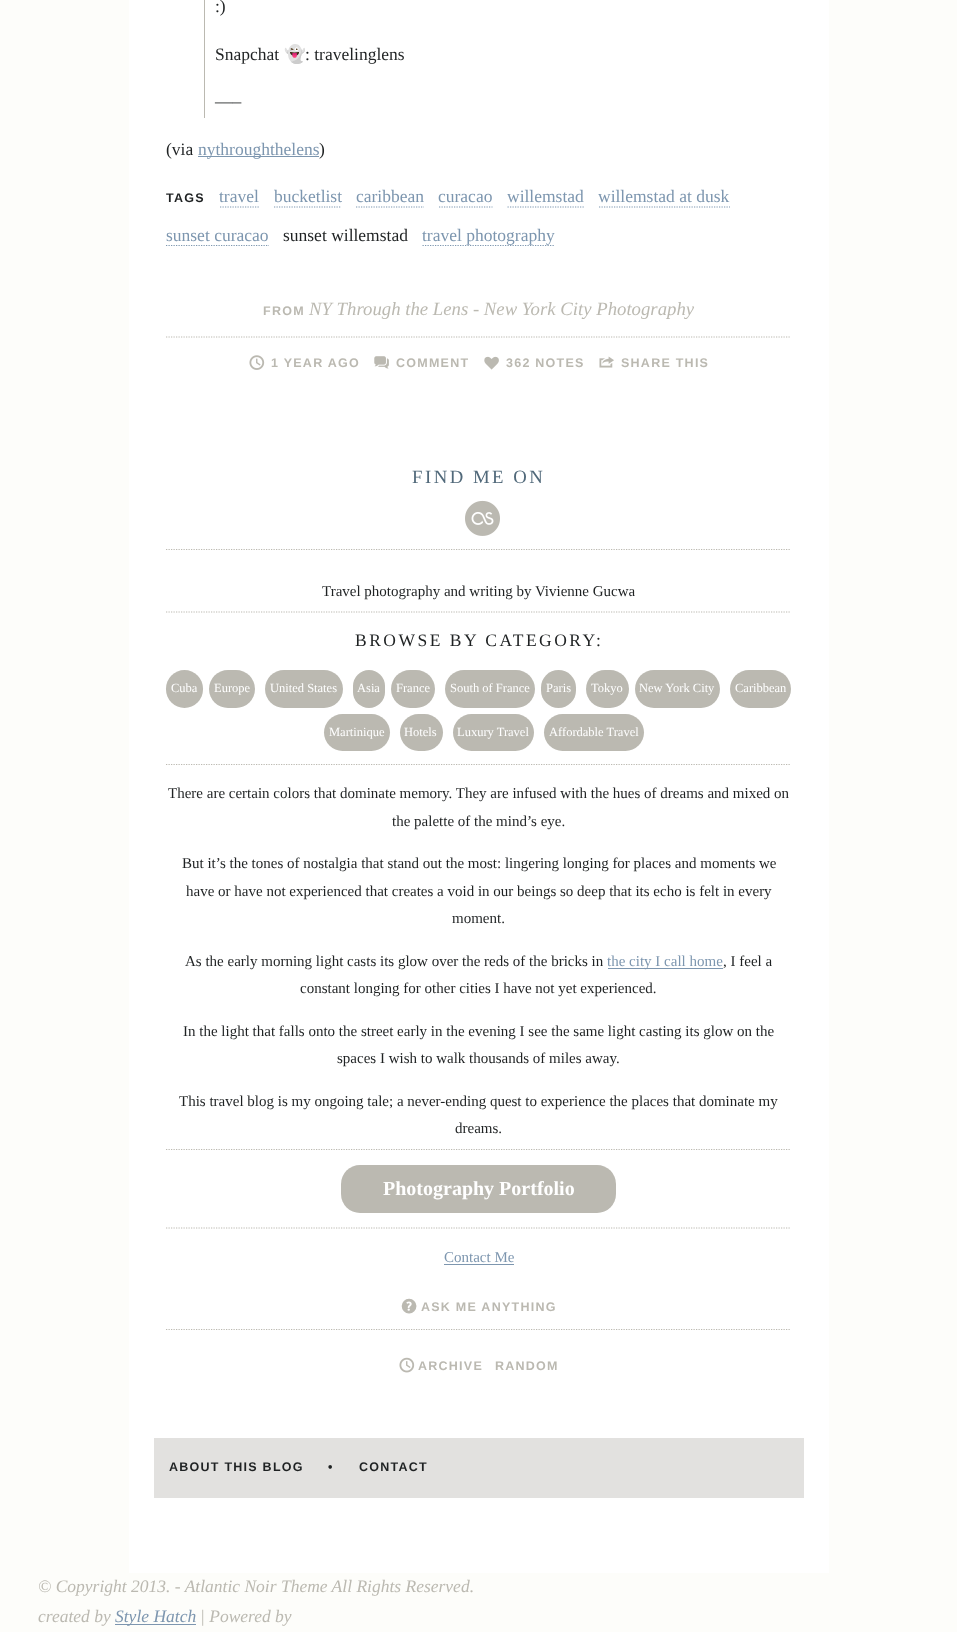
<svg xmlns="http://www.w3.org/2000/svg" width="957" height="1632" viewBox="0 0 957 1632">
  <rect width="100%" height="100%" fill="rgb(253,253,250)"/>
  <rect x="129" y="0" width="700" height="1573" fill="rgb(255,255,255)"/>
  <rect x="204" y="0" width="1" height="118" fill="rgb(187,185,177)"/>
  <g font-family="Liberation Serif" font-size="17.5" fill="rgb(31,34,35)">
    <text x="215" y="12">:)</text>
    <text x="215" y="60">Snapchat</text>
  </g>
  <text x="284" y="60" font-family="Noto Color Emoji" font-size="17.5" fill="rgb(31,34,35)">👻</text>
  <g font-family="Liberation Serif" font-size="17.5" fill="rgb(31,34,35)">
    <text x="305" y="60">: travelinglens</text>
    <text x="215" y="107">—–</text>
    <text x="166" y="155">(via</text>
  </g>
  <rect x="198" y="156" width="121" height="1" fill="rgb(125,150,175)"/>
  <text x="198" y="155" font-family="Liberation Serif" font-size="17.5" fill="rgb(125,150,175)">nythroughthelens</text>
  <text x="319" y="155" font-family="Liberation Serif" font-size="17.5" fill="rgb(31,34,35)">)</text>
  <text x="166" y="202" font-family="Liberation Sans" font-size="12.5" font-weight="bold" letter-spacing="1.25" fill="rgb(31,34,35)">TAGS</text>
  <text x="219" y="202" font-family="Liberation Serif" font-size="17.5" fill="rgb(125,150,175)">travel</text>
  <path d="M220 207H259" fill="none" stroke="rgb(125,150,175)" stroke-width="1.2" stroke-dasharray="1.25 1.25"/>
  <text x="274" y="202" font-family="Liberation Serif" font-size="17.5" fill="rgb(125,150,175)">bucketlist</text>
  <path d="M274 207H341" fill="none" stroke="rgb(125,150,175)" stroke-width="1.2" stroke-dasharray="1.25 1.25"/>
  <text x="356" y="202" font-family="Liberation Serif" font-size="17.5" fill="rgb(125,150,175)">caribbean</text>
  <path d="M356 207H424" fill="none" stroke="rgb(125,150,175)" stroke-width="1.2" stroke-dasharray="1.25 1.25"/>
  <text x="438" y="202" font-family="Liberation Serif" font-size="17.5" fill="rgb(125,150,175)">curacao</text>
  <path d="M439 207H492.5" fill="none" stroke="rgb(125,150,175)" stroke-width="1.2" stroke-dasharray="1.25 1.25"/>
  <text x="507" y="202" font-family="Liberation Serif" font-size="17.5" fill="rgb(125,150,175)">willemstad</text>
  <path d="M507.5 207H584" fill="none" stroke="rgb(125,150,175)" stroke-width="1.2" stroke-dasharray="1.25 1.25"/>
  <text x="598" y="202" font-family="Liberation Serif" font-size="17.5" fill="rgb(125,150,175)">willemstad at dusk</text>
  <path d="M599 207H730" fill="none" stroke="rgb(125,150,175)" stroke-width="1.2" stroke-dasharray="1.25 1.25"/>
  <text x="166" y="241" font-family="Liberation Serif" font-size="17.5" fill="rgb(125,150,175)">sunset curacao</text>
  <path d="M166 245.5H269" fill="none" stroke="rgb(125,150,175)" stroke-width="1.2" stroke-dasharray="1.25 1.25"/>
  <text x="283" y="241" font-family="Liberation Serif" font-size="17.5" fill="rgb(31,34,35)">sunset willemstad</text>
  <path d="M422.5 245.5H555" fill="none" stroke="rgb(125,150,175)" stroke-width="1.2" stroke-dasharray="1.25 1.25"/>
  <text x="422" y="241" font-family="Liberation Serif" font-size="17.5" fill="rgb(125,150,175)">travel photography</text>
  <text x="263" y="315" font-family="Liberation Sans" font-size="12.5" font-weight="bold" letter-spacing="1.25" fill="rgb(187,185,177)">FROM</text>
  <text x="309" y="315" font-family="Liberation Serif" font-size="18.75" font-style="italic" fill="rgb(187,185,177)">NY Through the Lens - New York City Photography</text>
  <path d="M166 337H791" fill="none" stroke="rgb(187,185,177)" stroke-width="1.2" stroke-dasharray="1.25 1.25"/>
  <image x="249" y="355" width="16" height="15" href="pic1.png"/>
  <text x="271" y="367" font-family="Liberation Sans" font-size="12.5" font-weight="bold" letter-spacing="1.25" fill="rgb(187,185,177)">1 YEAR AGO</text>
  <image x="374" y="356" width="15" height="13" href="pic2.png"/>
  <text x="396" y="367" font-family="Liberation Sans" font-size="12.5" font-weight="bold" letter-spacing="1.25" fill="rgb(187,185,177)">COMMENT</text>
  <image x="484" y="356" width="15" height="14" href="pic3.png"/>
  <text x="506" y="367" font-family="Liberation Sans" font-size="12.5" font-weight="bold" letter-spacing="1.25" fill="rgb(187,185,177)">362 NOTES</text>
  <image x="599" y="356" width="15" height="12" href="pic4.png"/>
  <text x="621" y="367" font-family="Liberation Sans" font-size="12.5" font-weight="bold" letter-spacing="1.25" fill="rgb(187,185,177)">SHARE THIS</text>
  <path d="M166 549.5H791" fill="none" stroke="rgb(187,185,177)" stroke-width="1.2" stroke-dasharray="1.25 1.25"/>
  <text x="412" y="483" font-family="Liberation Serif" font-size="18.75" letter-spacing="2.5" fill="rgb(81,105,122)">FIND ME ON</text>
  <image x="465" y="500" width="35" height="36" href="pic5.png"/>
  <path d="M166 612H791" fill="none" stroke="rgb(187,185,177)" stroke-width="1.2" stroke-dasharray="1.25 1.25"/>
  <text x="322" y="596" font-family="Liberation Serif" font-size="15" fill="rgb(31,34,35)">Travel photography and writing by Vivienne Gucwa</text>
  <text x="355" y="646" font-family="Liberation Serif" font-size="17.5" letter-spacing="2.5" fill="rgb(31,34,35)">BROWSE BY CATEGORY:</text>
  <path d="M166 764.5H791" fill="none" stroke="rgb(187,185,177)" stroke-width="1.2" stroke-dasharray="1.25 1.25"/>
  <rect x="166" y="670" width="37" height="38" rx="18.5" fill="rgb(187,185,177)"/>
  <text x="171" y="692" font-family="Liberation Serif" font-size="12.5" fill="rgb(255,255,255)">Cuba</text>
  <rect x="209" y="670" width="46" height="38" rx="19" fill="rgb(187,185,177)"/>
  <text x="214" y="692" font-family="Liberation Serif" font-size="12.5" fill="rgb(255,255,255)">Europe</text>
  <rect x="265" y="670" width="78" height="38" rx="19" fill="rgb(187,185,177)"/>
  <text x="270" y="692" font-family="Liberation Serif" font-size="12.5" fill="rgb(255,255,255)">United States</text>
  <rect x="353" y="670" width="32" height="38" rx="16" fill="rgb(187,185,177)"/>
  <text x="357" y="692" font-family="Liberation Serif" font-size="12.5" fill="rgb(255,255,255)">Asia</text>
  <rect x="391" y="670" width="44" height="38" rx="19" fill="rgb(187,185,177)"/>
  <text x="396" y="692" font-family="Liberation Serif" font-size="12.5" fill="rgb(255,255,255)">France</text>
  <rect x="445" y="670" width="90" height="38" rx="19" fill="rgb(187,185,177)"/>
  <text x="450" y="692" font-family="Liberation Serif" font-size="12.5" fill="rgb(255,255,255)">South of France</text>
  <rect x="541" y="670" width="35" height="38" rx="17.5" fill="rgb(187,185,177)"/>
  <text x="546" y="692" font-family="Liberation Serif" font-size="12.5" fill="rgb(255,255,255)">Paris</text>
  <rect x="586" y="670" width="43" height="38" rx="19" fill="rgb(187,185,177)"/>
  <text x="591" y="692" font-family="Liberation Serif" font-size="12.5" fill="rgb(255,255,255)">Tokyo</text>
  <rect x="635" y="670" width="85" height="38" rx="19" fill="rgb(187,185,177)"/>
  <text x="639" y="692" font-family="Liberation Serif" font-size="12.5" fill="rgb(255,255,255)">New York City</text>
  <rect x="730" y="670" width="61" height="38" rx="19" fill="rgb(187,185,177)"/>
  <text x="735" y="692" font-family="Liberation Serif" font-size="12.5" fill="rgb(255,255,255)">Caribbean</text>
  <rect x="324" y="714" width="66" height="37" rx="18.5" fill="rgb(187,185,177)"/>
  <text x="329" y="736" font-family="Liberation Serif" font-size="12.5" fill="rgb(255,255,255)">Martinique</text>
  <rect x="400" y="714" width="43" height="37" rx="18.5" fill="rgb(187,185,177)"/>
  <text x="404" y="736" font-family="Liberation Serif" font-size="12.5" fill="rgb(255,255,255)">Hotels</text>
  <rect x="453" y="714" width="81" height="37" rx="18.5" fill="rgb(187,185,177)"/>
  <text x="457" y="736" font-family="Liberation Serif" font-size="12.5" fill="rgb(255,255,255)">Luxury Travel</text>
  <rect x="544" y="714" width="100" height="37" rx="18.5" fill="rgb(187,185,177)"/>
  <text x="549" y="736" font-family="Liberation Serif" font-size="12.5" fill="rgb(255,255,255)">Affordable Travel</text>
  <g font-family="Liberation Serif" font-size="15" fill="rgb(31,34,35)">
    <text x="168" y="798">There are certain colors that dominate memory. They are infused with the hues of dreams and mixed on</text>
    <text x="392" y="826">the palette of the mind’s eye.</text>
    <text x="182" y="868">But it’s the tones of nostalgia that stand out the most: lingering longing for places and moments we</text>
    <text x="186" y="896">have or have not experienced that creates a void in our beings so deep that its echo is felt in every</text>
    <text x="452" y="923">moment.</text>
    <text x="185" y="966">As the early morning light casts its glow over the reds of the bricks in</text>
  </g>
  <rect x="608" y="968" width="115" height="1" fill="rgb(125,150,175)"/>
  <text x="607" y="966" font-family="Liberation Serif" font-size="15" fill="rgb(125,150,175)">the city I call home</text>
  <g font-family="Liberation Serif" font-size="15" fill="rgb(31,34,35)">
    <text x="723" y="966">, I feel a</text>
    <text x="300" y="993">constant longing for other cities I have not yet experienced.</text>
    <text x="183" y="1036">In the light that falls onto the street early in the evening I see the same light casting its glow on the</text>
    <text x="337" y="1063">spaces I wish to walk thousands of miles away.</text>
  </g>
  <path d="M166 1149.5H791" fill="none" stroke="rgb(187,185,177)" stroke-width="1.2" stroke-dasharray="1.25 1.25"/>
  <g font-family="Liberation Serif" font-size="15" fill="rgb(31,34,35)">
    <text x="179" y="1106">This travel blog is my ongoing tale; a never-ending quest to experience the places that dominate my</text>
    <text x="455" y="1133">dreams.</text>
  </g>
  <path d="M166 1228H791" fill="none" stroke="rgb(187,185,177)" stroke-width="1.2" stroke-dasharray="1.25 1.25"/>
  <rect x="341" y="1165" width="275" height="48" rx="19" fill="rgb(187,185,177)"/>
  <text x="383" y="1195" font-family="Liberation Serif" font-size="20" font-weight="bold" fill="rgb(255,255,255)">Photography Portfolio</text>
  <text x="444" y="1262" font-family="Liberation Serif" font-size="15" fill="rgb(125,150,175)">Contact Me</text>
  <rect x="444" y="1264" width="70" height="1" fill="rgb(125,150,175)"/>
  <path d="M166 1329.5H791" fill="none" stroke="rgb(187,185,177)" stroke-width="1.2" stroke-dasharray="1.25 1.25"/>
  <text x="401" y="1311" font-family="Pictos" font-size="17.5" letter-spacing="1.25" fill="rgb(187,185,177)">?</text>
  <text x="421" y="1311" font-family="Liberation Sans" font-size="12.5" font-weight="bold" letter-spacing="1.25" fill="rgb(187,185,177)">ASK ME ANYTHING</text>
  <image x="399" y="1357" width="16" height="16" href="pic6.png"/>
  <g font-family="Liberation Sans" font-size="12.5" font-weight="bold" letter-spacing="1.25" fill="rgb(187,185,177)">
    <text x="418" y="1370">ARCHIVE</text>
    <text x="495" y="1370">RANDOM</text>
  </g>
  <rect x="154" y="1438" width="650" height="60" fill="rgb(226,225,223)"/>
  <g font-family="Liberation Sans" font-size="12.5" font-weight="bold" letter-spacing="1.25" fill="rgb(31,34,35)">
    <text x="169" y="1471">ABOUT THIS BLOG</text>
    <text x="328" y="1471">•</text>
    <text x="359" y="1471">CONTACT</text>
  </g>
  <g font-family="Liberation Serif" font-size="17.5" font-style="italic" fill="rgb(187,185,177)">
    <text>
      <tspan x="38" y="1592">© Copyright 2013. - Atlantic Noir Theme All Rights Reserved.</tspan>
      <tspan x="38" y="1622">created by</tspan>
    </text>
  </g>
  <rect x="115" y="1624" width="81" height="1" fill="rgb(125,150,175)"/>
  <text x="115" y="1622" font-family="Liberation Serif" font-size="17.5" font-style="italic" fill="rgb(125,150,175)">Style Hatch</text>
  <text x="200" y="1622" font-family="Liberation Serif" font-size="17.5" font-style="italic" fill="rgb(187,185,177)">| Powered by</text>
</svg>
